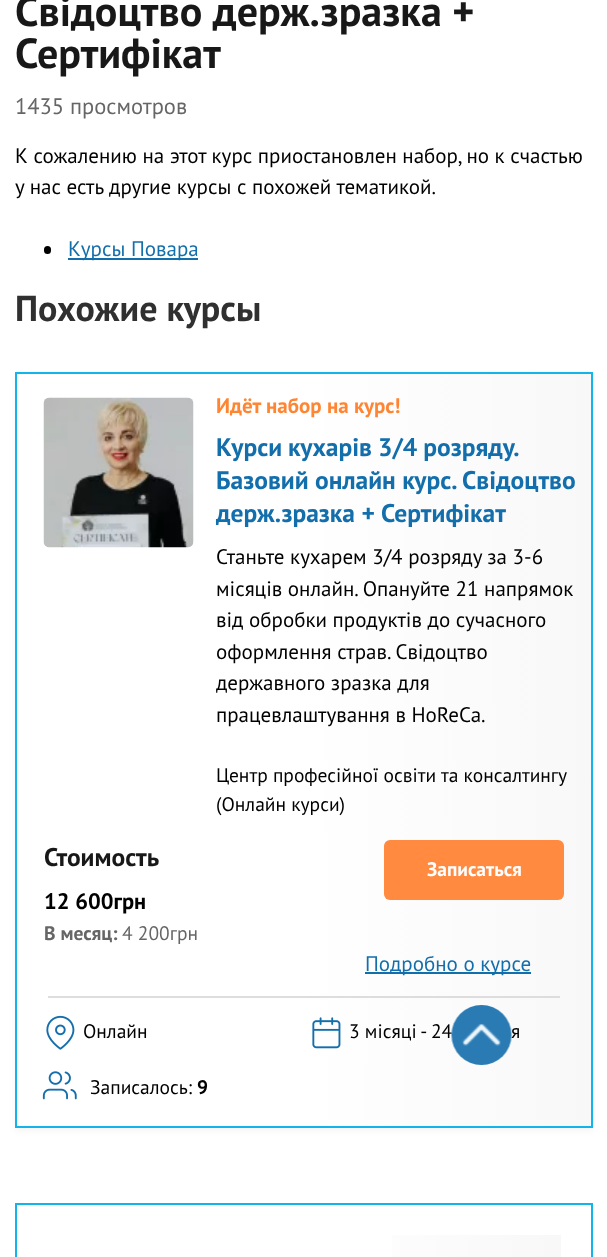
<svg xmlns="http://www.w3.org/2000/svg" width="607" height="1257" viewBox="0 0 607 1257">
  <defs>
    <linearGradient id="g1" gradientUnits="userSpaceOnUse" x1="593" y1="749" x2="15" y2="751"><stop offset="0" stop-color="rgb(248,248,248)"/><stop offset="0.51" stop-color="rgb(255,255,255)"/></linearGradient>
    <linearGradient id="g2" gradientUnits="userSpaceOnUse" x1="561" y1="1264" x2="47" y2="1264"><stop offset="0" stop-color="rgb(248,248,248)"/><stop offset="0.51" stop-color="rgb(255,255,255)"/></linearGradient>
  </defs>
  <rect width="100%" height="100%" fill="rgb(255,255,255)"/>
  <g font-family="PT Sans" font-size="42" font-weight="bold" fill="rgb(24,24,24)">
    <text>
      <tspan x="15" y="26">Свідоцтво держ.зразка +</tspan>
      <tspan x="15" y="68">Сертифікат</tspan>
    </text>
  </g>
  <text x="15" y="114" font-family="PT Sans" font-size="22.5" fill="rgb(102,102,102)">1435 просмотров</text>
  <g font-family="PT Sans" font-size="21" fill="rgb(0,0,0)">
    <text>
      <tspan x="15" y="163">К сожалению на этот курс приостановлен набор, но к счастью</tspan>
      <tspan x="15" y="194">у нас есть другие курсы с похожей тематикой.</tspan>
    </text>
  </g>
  <rect x="44" y="246" width="7" height="8" rx="3.5" fill="rgb(0,0,0)"/>
  <rect x="68" y="258" width="130" height="2" fill="rgb(19,110,172)"/>
  <text x="68" y="256" font-family="PT Sans" font-size="21" fill="rgb(19,110,172)">Курсы Повара</text>
  <text x="15" y="321" font-family="PT Sans" font-size="36" font-weight="bold" fill="rgb(48,48,48)">Похожие курсы</text>
  <rect x="15" y="375" width="578" height="756" fill="rgba(0,0,0,0.04)" filter="blur(3px)"/>
  <rect x="17" y="374" width="574" height="752" fill="url(#g1)"/>
  <rect x="16" y="373" width="576" height="754" fill="none" stroke="rgb(18,180,233)" stroke-width="2"/>
  <image x="43" y="397" width="151" height="151" href="pic1.png"/>
  <text x="216" y="413" font-family="PT Sans" font-size="21" font-weight="bold" fill="rgb(255,133,50)">Идёт набор на курс!</text>
  <g font-family="PT Sans" font-size="25.5" font-weight="bold" fill="rgb(19,110,172)">
    <text>
      <tspan x="216" y="456" word-spacing="-0.5">Курси кухарів 3/4 розряду.</tspan>
      <tspan x="216" y="489">Базовий онлайн курс. Свідоцтво</tspan>
      <tspan x="216" y="522">держ.зразка + Сертифікат</tspan>
    </text>
  </g>
  <g font-family="PT Sans" font-size="21" fill="rgb(0,0,0)">
    <text>
      <tspan x="216" y="564">Станьте кухарем 3/4 розряду за 3-6</tspan>
      <tspan x="216" y="596">місяців онлайн. Опануйте 21 напрямок</tspan>
      <tspan x="216" y="627">від обробки продуктів до сучасного</tspan>
      <tspan x="216" y="659">оформлення страв. Свідоцтво</tspan>
      <tspan x="216" y="690">державного зразка для</tspan>
      <tspan x="216" y="722">працевлаштування в HoReCa.</tspan>
    </text>
  </g>
  <g font-family="PT Sans" font-size="19.5" fill="rgb(0,0,0)">
    <text>
      <tspan x="216" y="782">Центр професійної освіти та консалтингу</tspan>
      <tspan x="216" y="811">(Онлайн курси)</tspan>
    </text>
  </g>
  <text x="44" y="866" font-family="PT Sans" font-size="25.5" font-weight="bold" fill="rgb(24,24,24)">Стоимость</text>
  <text x="44" y="909" font-family="PT Sans" font-size="22.5" font-weight="bold" fill="rgb(0,0,0)">12 600грн</text>
  <text x="44" y="940" font-family="PT Sans" font-size="19.5" font-weight="bold" fill="rgb(102,102,102)">В месяц:</text>
  <text x="122" y="940" font-family="PT Sans" font-size="19.5" fill="rgb(102,102,102)">4 200грн</text>
  <rect x="384" y="840" width="180" height="60" rx="6" fill="rgb(255,138,64)"/>
  <text x="427" y="876" font-family="PT Sans" font-size="19.5" font-weight="bold" fill="rgb(255,255,255)">Записаться</text>
  <rect x="365" y="972" width="166" height="2" fill="rgb(19,110,172)"/>
  <text x="365" y="971" font-family="PT Sans" font-size="21" fill="rgb(19,110,172)">Подробно о курсе</text>
  <rect x="48" y="996" width="512" height="2" fill="rgb(221,221,221)"/>
  <image x="46" y="1015" width="29" height="35" href="pic2.png"/>
  <text x="83" y="1038" font-family="PT Sans" font-size="19.5" fill="rgb(0,0,0)">Онлайн</text>
  <image x="312" y="1017" width="29" height="32" href="pic3.png"/>
  <g font-family="PT Sans" font-size="19.5" fill="rgb(0,0,0)">
    <text x="349" y="1038">3 місяці - 24</text>
    <text x="511" y="1038">я</text>
  </g>
  <image x="42" y="1071" width="35" height="29" href="pic4.png"/>
  <text x="90" y="1094" font-family="PT Sans" font-size="19.5" fill="rgb(0,0,0)">Записалось:</text>
  <text x="197" y="1094" font-family="PT Sans" font-size="19.5" font-weight="bold" fill="rgb(0,0,0)">9</text>
  <rect x="16" y="1204" width="576" height="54" fill="none" stroke="rgb(18,180,233)" stroke-width="2"/>
  <rect x="392" y="1235" width="169" height="22" fill="url(#g2)"/>
  <image x="451" y="1005" width="61" height="60" href="pic5.png"/>
</svg>
